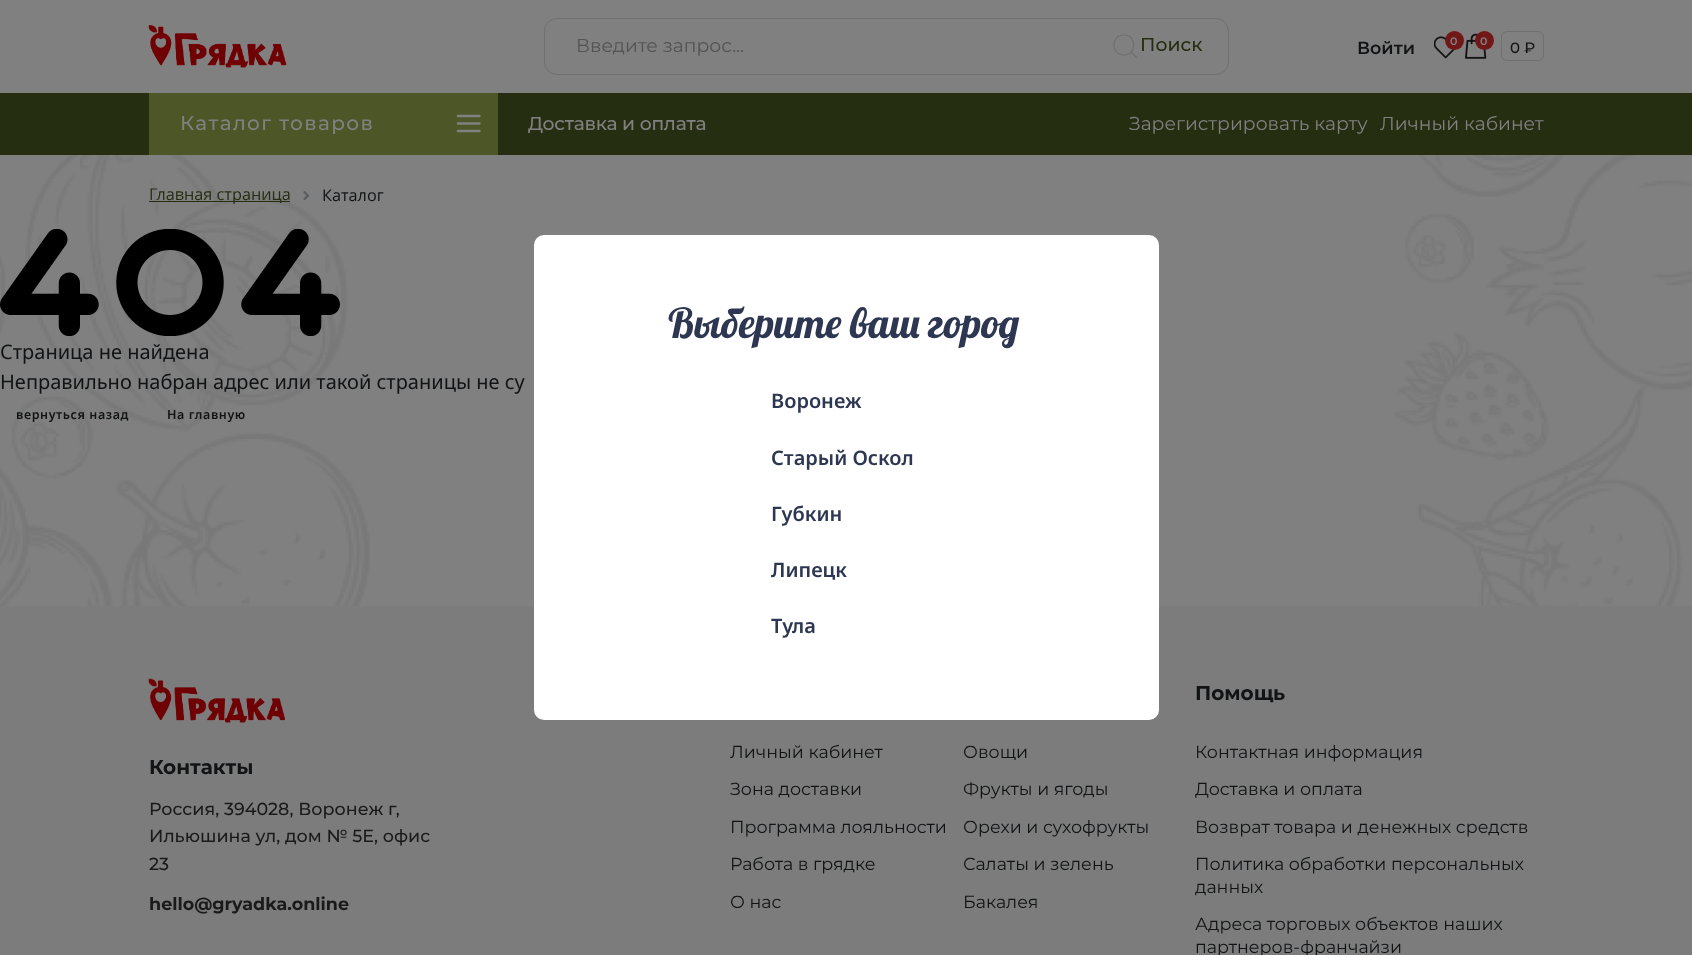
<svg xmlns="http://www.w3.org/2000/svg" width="1692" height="955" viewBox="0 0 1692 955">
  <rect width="100%" height="100%" fill="rgb(128,128,128)"/>
  <image x="0" y="155" width="1692" height="451" href="pic1.png"/>
  <image x="148" y="25" width="139" height="43" href="pic2.png"/>
  <rect x="544.5" y="18.5" width="684" height="56" rx="12.5" fill="none" stroke="rgb(111,111,111)"/>
  <text x="576" y="52" font-family="Montserrat" font-size="18.75" fill="rgb(83,82,85)">Введите запрос...</text>
  <path d="M1124 55C1137 55 1137 35 1124 35C1110.5 35 1110.5 55 1124 55ZM1136.5 57.5L1131 52" fill="none" stroke="rgb(111,111,111)" stroke-width="1.2" stroke-linecap="round" stroke-linejoin="round"/>
  <text x="1140" y="51" font-family="Montserrat" font-size="18.75" font-weight="500" fill="rgb(38,46,18)">Поиск</text>
  <text x="1357" y="54" font-family="Montserrat" font-size="17.5" font-weight="600" fill="rgb(17,19,21)">Войти</text>
  <image x="1434" y="36" width="22" height="23" href="pic3.png"/>
  <circle cx="1454.5" cy="40.5" r="9.5" fill="rgb(114,23,23)"/>
  <text x="1450" y="45" font-family="Montserrat" font-size="11" font-weight="600" fill="rgb(128,128,128)">0</text>
  <image x="1465" y="33" width="22" height="26" href="pic4.png"/>
  <circle cx="1484.5" cy="40.5" r="9.5" fill="rgb(114,23,23)"/>
  <text x="1480" y="45" font-family="Montserrat" font-size="11" font-weight="600" fill="rgb(128,128,128)">0</text>
  <rect x="1501.5" y="31.5" width="42" height="29" rx="5.5" fill="none" stroke="rgb(111,111,111)"/>
  <text x="1510" y="53" font-family="Montserrat" font-size="15" font-weight="500" fill="rgb(17,19,21)">0 ₽</text>
  <rect x="0" y="93" width="1692" height="62" fill="rgb(38,46,18)"/>
  <rect x="149" y="93" width="349" height="62" fill="rgb(77,86,39)"/>
  <text x="180" y="130" font-family="Montserrat" font-size="20" font-weight="500" letter-spacing="1.4" fill="rgb(128,128,128)">Каталог товаров</text>
  <path d="M479.5 116H458M479.5 123.5H458M479.5 131H458" fill="none" stroke="rgb(128,128,128)" stroke-width="2.5" stroke-linecap="round" stroke-linejoin="round"/>
  <text x="528" y="130" font-family="Montserrat" font-size="18.75" font-weight="500" letter-spacing="-0.25" fill="rgb(128,128,128)">Доставка и оплата</text>
  <g font-family="Montserrat" font-size="18.75" fill="rgb(128,128,128)">
    <text x="1129" y="130">Зарегистрировать карту</text>
    <text x="1380" y="130">Личный кабинет</text>
  </g>
  <rect x="149" y="201" width="141" height="1" fill="rgb(38,46,18)"/>
  <text x="149" y="200" font-family="Open Sans" font-size="16.25" fill="rgb(38,46,18)">Главная страница</text>
  <image x="303" y="191" width="7" height="10" href="pic5.png"/>
  <text x="322" y="201" font-family="Open Sans" font-size="16.25" fill="rgb(17,19,21)">Каталог</text>
  <image x="0" y="229" width="340" height="107" href="pic6.png"/>
  <g font-family="Noto Sans" font-size="20" fill="rgb(17,19,21)">
    <text>
      <tspan x="0" y="359">Страница не найдена</tspan>
      <tspan x="0" y="389">Неправильно набран адрес или такой страницы не су</tspan>
    </text>
  </g>
  <g font-family="Noto Sans" font-size="12.5" font-weight="600" letter-spacing="0.6" fill="rgb(17,19,21)">
    <text x="16" y="419">вернуться назад</text>
    <text x="167" y="419">На главную</text>
  </g>
  <rect x="0" y="606" width="1692" height="349" fill="rgb(124,124,124)"/>
  <rect x="534" y="235" width="625" height="485" rx="10" fill="rgb(255,255,255)"/>
  <text x="668" y="338" font-family="Lobster" font-size="41.25" fill="rgb(46,55,82)">Выберите ваш город</text>
  <g font-family="Noto Sans" font-size="20" font-weight="600" fill="rgb(46,55,82)">
    <text x="771" y="408">Воронеж</text>
    <text x="771" y="465">Старый Оскол</text>
    <text x="771" y="521">Губкин</text>
    <text x="771" y="577">Липецк</text>
    <text x="771" y="633">Тула</text>
  </g>
  <image x="148" y="678" width="137" height="45" href="pic7.png"/>
  <text x="149" y="774" font-family="Montserrat" font-size="20" font-weight="bold" fill="rgb(17,19,21)">Контакты</text>
  <g font-family="Montserrat" font-size="17.5" font-weight="500" fill="rgb(26,26,26)">
    <text>
      <tspan x="149" y="815">Россия, 394028, Воронеж г,</tspan>
      <tspan x="149" y="842">Ильюшина ул, дом № 5Е, офис</tspan>
      <tspan x="149" y="870">23</tspan>
    </text>
  </g>
  <text x="149" y="910" font-family="Montserrat" font-size="17.5" font-weight="bold" fill="rgb(26,26,26)">hello@gryadka.online</text>
  <g font-family="Montserrat" font-size="17.5" fill="rgb(17,19,21)">
    <text x="730" y="758">Личный кабинет</text>
    <text x="730" y="795">Зона доставки</text>
    <text x="730" y="833">Программа лояльности</text>
    <text x="730" y="870">Работа в грядке</text>
    <text x="730" y="908">О нас</text>
    <text x="963" y="758">Овощи</text>
    <text x="963" y="795">Фрукты и ягоды</text>
    <text x="963" y="833">Орехи и сухофрукты</text>
    <text x="963" y="870">Салаты и зелень</text>
    <text x="963" y="908">Бакалея</text>
  </g>
  <text x="1195" y="700" font-family="Montserrat" font-size="20" font-weight="bold" fill="rgb(17,19,21)">Помощь</text>
  <g font-family="Montserrat" font-size="17.5" fill="rgb(17,19,21)">
    <text x="1195" y="758">Контактная информация</text>
    <text x="1195" y="795">Доставка и оплата</text>
    <text x="1195" y="833">Возврат товара и денежных средств</text>
    <text>
      <tspan x="1195" y="870">Политика обработки персональных</tspan>
      <tspan x="1195" y="893">данных</tspan>
    </text>
    <text>
      <tspan x="1195" y="930">Адреса торговых объектов наших</tspan>
      <tspan x="1195" y="953">партнеров-франчайзи</tspan>
    </text>
  </g>
</svg>
